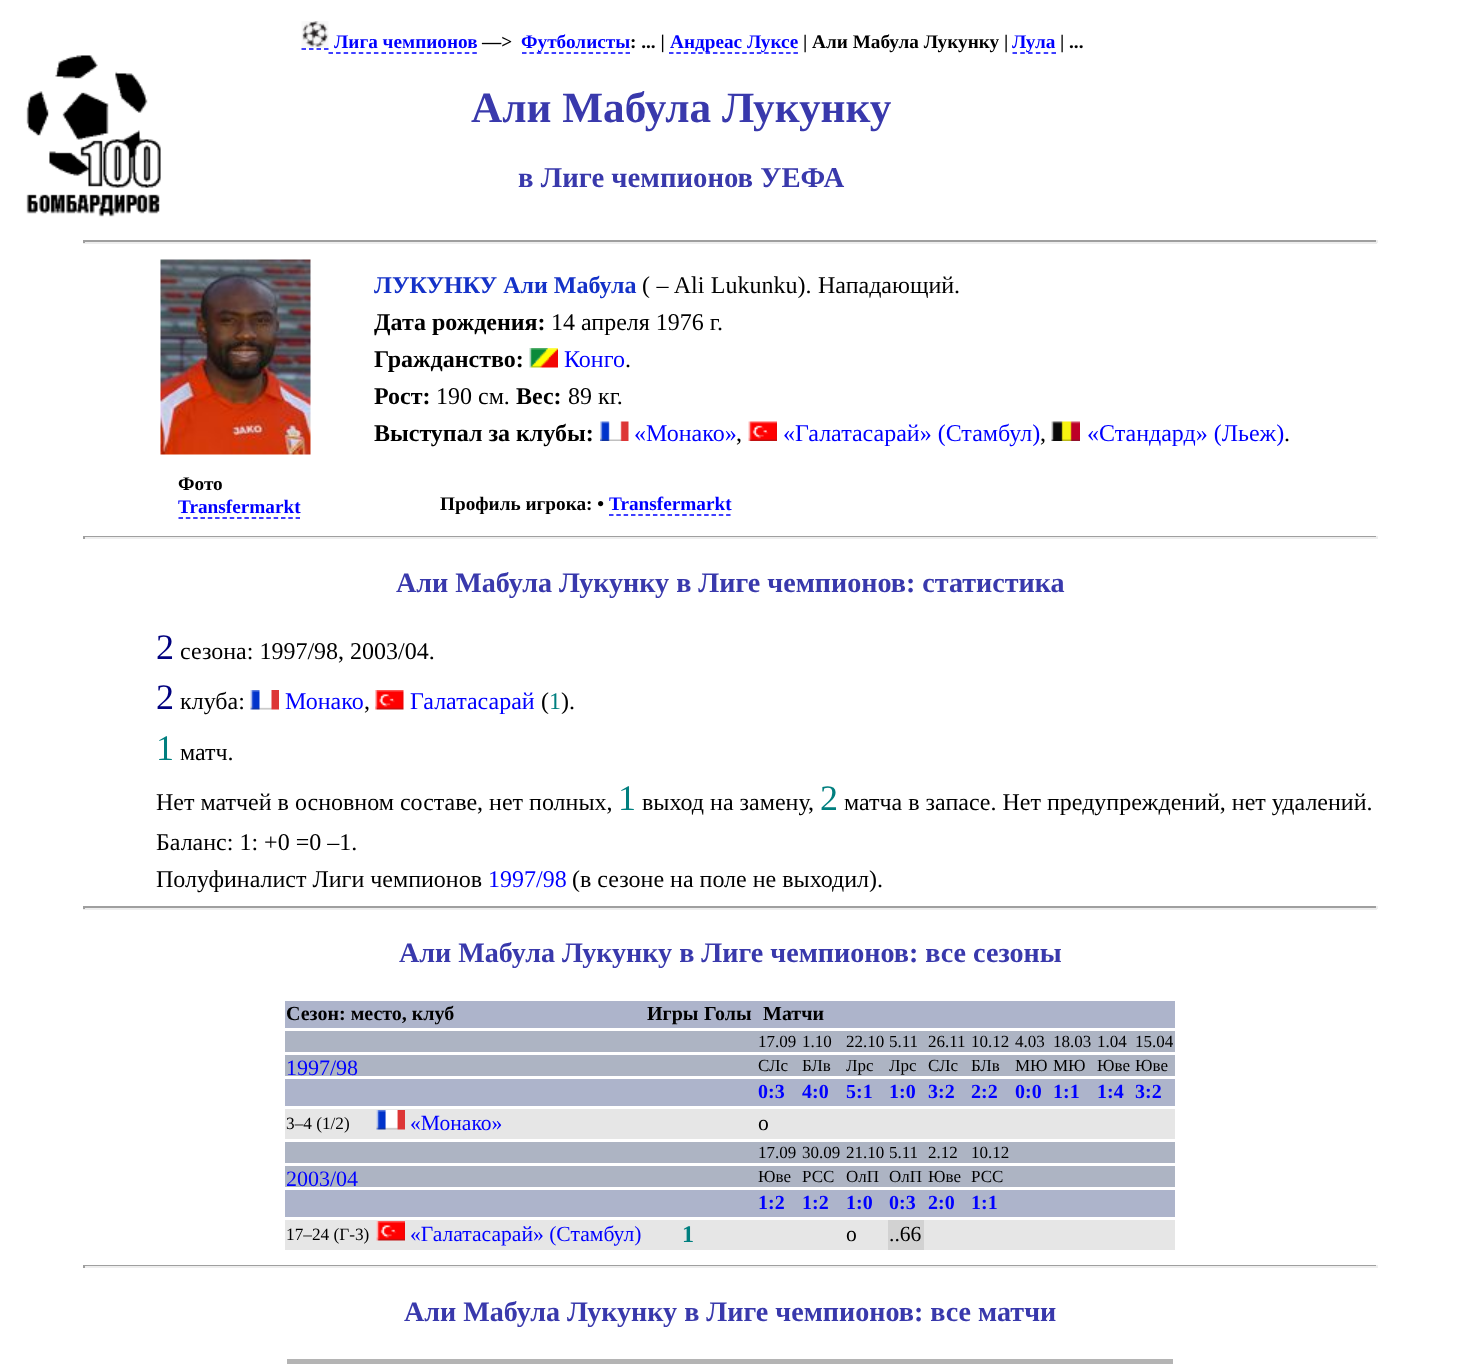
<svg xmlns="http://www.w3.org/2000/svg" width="1459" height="1364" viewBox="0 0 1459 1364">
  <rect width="100%" height="100%" fill="rgb(255,255,255)"/>
  <image x="26" y="55" width="135" height="162" href="pic1.png"/>
  <image x="301" y="21" width="28" height="27" href="pic2.png"/>
  <text x="334" y="48" font-family="Liberation Serif" font-size="19.25" font-weight="bold" fill="rgb(0,0,255)">Лига чемпионов</text>
  <path d="M301.5 49H328.5" fill="none" stroke="rgb(0,0,255)" stroke-width="1.5" stroke-dasharray="4.5 3"/>
  <path d="M328.5 53H477" fill="none" stroke="rgb(0,0,255)" stroke-width="1.5" stroke-dasharray="4.5 3.07"/>
  <text x="482" y="48" font-family="Liberation Serif" font-size="19.25" font-weight="bold" fill="rgb(0,0,0)">—&gt;</text>
  <path d="M522 53H630" fill="none" stroke="rgb(0,0,255)" stroke-width="1.5" stroke-dasharray="4.5 2.9"/>
  <text x="521" y="48" font-family="Liberation Serif" font-size="19.25" font-weight="bold" fill="rgb(0,0,255)">Футболисты</text>
  <text x="630" y="48" font-family="Liberation Serif" font-size="19.25" font-weight="bold" fill="rgb(0,0,0)">: ... |</text>
  <path d="M669 53H798" fill="none" stroke="rgb(0,0,255)" stroke-width="1.5" stroke-dasharray="4.5 2.82"/>
  <text x="670" y="48" font-family="Liberation Serif" font-size="19.25" font-weight="bold" fill="rgb(0,0,255)">Андреас Луксе</text>
  <text x="803" y="48" font-family="Liberation Serif" font-size="19.25" font-weight="bold" fill="rgb(0,0,0)">| Али Мабула Лукунку |</text>
  <path d="M1012.5 53H1056" fill="none" stroke="rgb(0,0,255)" stroke-width="1.5" stroke-dasharray="4.5 3.3"/>
  <text x="1012" y="48" font-family="Liberation Serif" font-size="19.25" font-weight="bold" fill="rgb(0,0,255)">Лула</text>
  <text x="1060" y="48" font-family="Liberation Serif" font-size="19.25" font-weight="bold" fill="rgb(0,0,0)">| ...</text>
  <text x="471" y="122" font-family="Liberation Serif" font-size="43.25" font-weight="bold" fill="rgb(57,57,172)">Али Мабула Лукунку</text>
  <text x="518" y="187" font-family="Liberation Serif" font-size="28.75" font-weight="bold" fill="rgb(57,57,172)">в Лиге чемпионов УЕФА</text>
  <rect x="83" y="240" width="1294" height="2" fill="rgb(159,159,159)"/>
  <rect x="1376" y="240" width="2" height="3" fill="rgb(238,238,238)"/>
  <rect x="83" y="242" width="1294" height="2" fill="rgb(238,238,238)"/>
  <rect x="83" y="240" width="2" height="3" fill="rgb(159,159,159)"/>
  <image x="160" y="259" width="151" height="196" href="pic3.png"/>
  <text x="178" y="490" font-family="Liberation Serif" font-size="19.25" font-weight="bold" fill="rgb(0,0,0)">Фото</text>
  <text x="178" y="513" font-family="Liberation Serif" font-size="19.25" font-weight="bold" fill="rgb(0,0,255)">Transfermarkt</text>
  <path d="M178.5 518H300" fill="none" stroke="rgb(0,0,255)" stroke-width="1.5" stroke-dasharray="4.5 2.82"/>
  <text x="374" y="293" font-family="Liberation Serif" font-size="24" font-weight="bold" fill="rgb(20,50,200)">ЛУКУНКУ Али Мабула</text>
  <text x="642" y="293" word-spacing="0.5" font-family="Liberation Serif" font-size="24" fill="rgb(0,0,0)">( – Ali Lukunku). Нападающий.</text>
  <text x="374" y="330" font-family="Liberation Serif" font-size="24" font-weight="bold" fill="rgb(0,0,0)">Дата рождения:</text>
  <text x="551" y="330" font-family="Liberation Serif" font-size="24" fill="rgb(0,0,0)">14 апреля 1976 г.</text>
  <text x="374" y="367" font-family="Liberation Serif" font-size="24" font-weight="bold" fill="rgb(0,0,0)">Гражданство:</text>
  <image x="529" y="348" width="29" height="20" href="pic4.png"/>
  <text x="564" y="367" font-family="Liberation Serif" font-size="24" fill="rgb(0,0,255)">Конго</text>
  <text x="625" y="367" font-family="Liberation Serif" font-size="24" fill="rgb(0,0,0)">.</text>
  <text x="374" y="404" font-family="Liberation Serif" font-size="24" font-weight="bold" fill="rgb(0,0,0)">Рост:</text>
  <text x="436" y="404" font-family="Liberation Serif" font-size="24" fill="rgb(0,0,0)">190 см.</text>
  <text x="516" y="404" font-family="Liberation Serif" font-size="24" font-weight="bold" fill="rgb(0,0,0)">Вес:</text>
  <text x="568" y="404" font-family="Liberation Serif" font-size="24" fill="rgb(0,0,0)">89 кг.</text>
  <text x="374" y="441" font-family="Liberation Serif" font-size="24" font-weight="bold" fill="rgb(0,0,0)">Выступал за клубы:</text>
  <image x="600" y="421" width="29" height="20" href="pic5.png"/>
  <text x="634" y="441" font-family="Liberation Serif" font-size="24" fill="rgb(0,0,255)">«Монако»</text>
  <text x="736" y="441" font-family="Liberation Serif" font-size="24" fill="rgb(0,0,0)">,</text>
  <image x="748" y="421" width="29" height="20" href="pic6.png"/>
  <text x="783" y="441" font-family="Liberation Serif" font-size="24" fill="rgb(0,0,255)">«Галатасарай» (Стамбул)</text>
  <text x="1040" y="441" font-family="Liberation Serif" font-size="24" fill="rgb(0,0,0)">,</text>
  <image x="1051" y="421" width="29" height="20" href="pic7.png"/>
  <text x="1087" y="441" font-family="Liberation Serif" font-size="24" fill="rgb(0,0,255)">«Стандард» (Льеж)</text>
  <text x="1284" y="441" font-family="Liberation Serif" font-size="24" fill="rgb(0,0,0)">.</text>
  <text x="440" y="510" font-family="Liberation Serif" font-size="19.25" font-weight="bold" fill="rgb(0,0,0)">Профиль игрока: •</text>
  <text x="609" y="510" font-family="Liberation Serif" font-size="19.25" font-weight="bold" fill="rgb(0,0,255)">Transfermarkt</text>
  <path d="M609 515H730.5" fill="none" stroke="rgb(0,0,255)" stroke-width="1.5" stroke-dasharray="4.5 2.82"/>
  <rect x="83" y="536" width="1294" height="1" fill="rgb(159,159,159)"/>
  <rect x="1376" y="536" width="2" height="3" fill="rgb(238,238,238)"/>
  <rect x="83" y="537" width="1294" height="2" fill="rgb(238,238,238)"/>
  <rect x="83" y="536" width="2" height="3" fill="rgb(159,159,159)"/>
  <text x="396" y="592" font-family="Liberation Serif" font-size="28.1" font-weight="bold" fill="rgb(57,57,172)">Али Мабула Лукунку в Лиге чемпионов: статистика</text>
  <text x="156" y="659" font-family="Liberation Serif" font-size="36" fill="rgb(0,0,127)">2</text>
  <text x="180" y="659" font-family="Liberation Serif" font-size="24" fill="rgb(0,0,0)">сезона: 1997/98, 2003/04.</text>
  <text x="156" y="709" font-family="Liberation Serif" font-size="36" fill="rgb(0,0,127)">2</text>
  <text x="180" y="709" font-family="Liberation Serif" font-size="24" fill="rgb(0,0,0)">клуба:</text>
  <image x="250" y="690" width="29" height="20" href="pic8.png"/>
  <text x="285" y="709" font-family="Liberation Serif" font-size="24" fill="rgb(0,0,255)">Монако</text>
  <text x="364" y="709" font-family="Liberation Serif" font-size="24" fill="rgb(0,0,0)">,</text>
  <image x="375" y="690" width="29" height="20" href="pic9.png"/>
  <text x="410" y="709" font-family="Liberation Serif" font-size="24" fill="rgb(0,0,255)">Галатасарай</text>
  <text x="541" y="709" font-family="Liberation Serif" font-size="24" fill="rgb(0,0,0)">(</text>
  <text x="549" y="709" font-family="Liberation Serif" font-size="24" fill="rgb(0,127,127)">1</text>
  <text x="561" y="709" font-family="Liberation Serif" font-size="24" fill="rgb(0,0,0)">).</text>
  <text x="156" y="760" font-family="Liberation Serif" font-size="36" fill="rgb(0,127,127)">1</text>
  <g font-family="Liberation Serif" font-size="24" fill="rgb(0,0,0)">
    <text x="180" y="760">матч.</text>
    <text x="156" y="810">Нет матчей в основном составе, нет полных,</text>
  </g>
  <text x="618" y="810" font-family="Liberation Serif" font-size="36" fill="rgb(0,127,127)">1</text>
  <text x="642" y="810" font-family="Liberation Serif" font-size="24" fill="rgb(0,0,0)">выход на замену,</text>
  <text x="820" y="810" font-family="Liberation Serif" font-size="36" fill="rgb(0,127,127)">2</text>
  <g font-family="Liberation Serif" font-size="24" fill="rgb(0,0,0)">
    <text x="844" y="810">матча в запасе. Нет предупреждений, нет удалений.</text>
    <text>
      <tspan x="156" y="850">Баланс: 1: +0 =0 –1.</tspan>
      <tspan x="156" y="887">Полуфиналист Лиги чемпионов</tspan>
    </text>
  </g>
  <text x="488" y="887" font-family="Liberation Serif" font-size="24" fill="rgb(0,0,255)">1997/98</text>
  <text x="572" y="887" font-family="Liberation Serif" font-size="24" fill="rgb(0,0,0)">(в сезоне на поле не выходил).</text>
  <rect x="83" y="906" width="1294" height="2" fill="rgb(159,159,159)"/>
  <rect x="1376" y="906" width="2" height="3" fill="rgb(238,238,238)"/>
  <rect x="83" y="908" width="1294" height="2" fill="rgb(238,238,238)"/>
  <rect x="83" y="906" width="2" height="3" fill="rgb(159,159,159)"/>
  <text x="399" y="962" font-family="Liberation Serif" font-size="28.1" font-weight="bold" fill="rgb(57,57,172)">Али Мабула Лукунку в Лиге чемпионов: все сезоны</text>
  <rect x="285" y="1001" width="890" height="27" fill="rgb(173,180,203)"/>
  <g font-family="Liberation Serif" font-size="20" font-weight="bold" fill="rgb(0,0,0)">
    <text x="286" y="1020">Сезон: место, клуб</text>
    <text x="647" y="1020">Игры</text>
    <text x="704" y="1020">Голы</text>
    <text x="763" y="1020">Матчи</text>
  </g>
  <rect x="285" y="1031" width="890" height="21" fill="rgb(173,180,195)"/>
  <g font-family="Liberation Serif" font-size="17" fill="rgb(0,0,0)">
    <text x="758" y="1047">17.09</text>
    <text x="802" y="1047">1.10</text>
    <text x="846" y="1047">22.10</text>
    <text x="889" y="1047">5.11</text>
    <text x="928" y="1047">26.11</text>
    <text x="971" y="1047">10.12</text>
    <text x="1015" y="1047">4.03</text>
    <text x="1053" y="1047">18.03</text>
    <text x="1097" y="1047">1.04</text>
    <text x="1135" y="1047">15.04</text>
  </g>
  <rect x="285" y="1055" width="890" height="21" fill="rgb(173,180,195)"/>
  <text x="286" y="1075" font-family="Liberation Serif" font-size="22" fill="rgb(0,0,255)">1997/98</text>
  <g font-family="Liberation Serif" font-size="17" fill="rgb(0,0,0)">
    <text x="758" y="1071">СЛс</text>
    <text x="802" y="1071">БЛв</text>
    <text x="846" y="1071">Лрс</text>
    <text x="889" y="1071">Лрс</text>
    <text x="928" y="1071">СЛс</text>
    <text x="971" y="1071">БЛв</text>
    <text x="1015" y="1071">МЮ</text>
    <text x="1053" y="1071">МЮ</text>
    <text x="1097" y="1071">Юве</text>
    <text x="1135" y="1071">Юве</text>
  </g>
  <rect x="285" y="1079" width="890" height="27" fill="rgb(173,180,203)"/>
  <g font-family="Liberation Serif" font-size="20" font-weight="bold" fill="rgb(0,0,255)">
    <text x="758" y="1098">0:3</text>
    <text x="802" y="1098">4:0</text>
    <text x="846" y="1098">5:1</text>
    <text x="889" y="1098">1:0</text>
    <text x="928" y="1098">3:2</text>
    <text x="971" y="1098">2:2</text>
    <text x="1015" y="1098">0:0</text>
    <text x="1053" y="1098">1:1</text>
    <text x="1097" y="1098">1:4</text>
    <text x="1135" y="1098">3:2</text>
  </g>
  <rect x="285" y="1109" width="890" height="30" fill="rgb(230,230,230)"/>
  <text x="286" y="1129" font-family="Liberation Serif" font-size="17.25" fill="rgb(0,0,0)">3–4 (1/2)</text>
  <image x="376" y="1110" width="29" height="20" href="pic10.png"/>
  <text x="410" y="1130" font-family="Liberation Serif" font-size="21.6" fill="rgb(0,0,255)">«Монако»</text>
  <text x="758" y="1130" font-family="Liberation Serif" font-size="21.6" fill="rgb(0,0,0)">о</text>
  <rect x="285" y="1142" width="890" height="21" fill="rgb(173,180,195)"/>
  <g font-family="Liberation Serif" font-size="17" fill="rgb(0,0,0)">
    <text x="758" y="1158">17.09</text>
    <text x="802" y="1158">30.09</text>
    <text x="846" y="1158">21.10</text>
    <text x="889" y="1158">5.11</text>
    <text x="928" y="1158">2.12</text>
    <text x="971" y="1158">10.12</text>
  </g>
  <rect x="285" y="1166" width="890" height="21" fill="rgb(173,180,195)"/>
  <text x="286" y="1186" font-family="Liberation Serif" font-size="22" fill="rgb(0,0,255)">2003/04</text>
  <g font-family="Liberation Serif" font-size="17" fill="rgb(0,0,0)">
    <text x="758" y="1182">Юве</text>
    <text x="802" y="1182">РСС</text>
    <text x="846" y="1182">ОлП</text>
    <text x="889" y="1182">ОлП</text>
    <text x="928" y="1182">Юве</text>
    <text x="971" y="1182">РСС</text>
  </g>
  <rect x="285" y="1190" width="890" height="27" fill="rgb(173,180,203)"/>
  <g font-family="Liberation Serif" font-size="20" font-weight="bold" fill="rgb(0,0,255)">
    <text x="758" y="1209">1:2</text>
    <text x="802" y="1209">1:2</text>
    <text x="846" y="1209">1:0</text>
    <text x="889" y="1209">0:3</text>
    <text x="928" y="1209">2:0</text>
    <text x="971" y="1209">1:1</text>
  </g>
  <rect x="285" y="1220" width="890" height="30" fill="rgb(230,230,230)"/>
  <text x="286" y="1240" font-family="Liberation Serif" font-size="17.25" fill="rgb(0,0,0)">17–24 (Г-3)</text>
  <image x="376" y="1221" width="29" height="20" href="pic11.png"/>
  <text x="410" y="1241" font-family="Liberation Serif" font-size="21.6" fill="rgb(0,0,255)">«Галатасарай» (Стамбул)</text>
  <text x="682" y="1242" font-family="Liberation Serif" font-size="24" font-weight="bold" fill="rgb(0,127,127)">1</text>
  <text x="846" y="1241" font-family="Liberation Serif" font-size="21.6" fill="rgb(0,0,0)">о</text>
  <rect x="888" y="1220" width="36" height="30" fill="rgb(210,210,210)"/>
  <text x="889" y="1241" font-family="Liberation Serif" font-size="21.6" fill="rgb(0,0,0)">..66</text>
  <rect x="83" y="1265" width="1294" height="1" fill="rgb(159,159,159)"/>
  <rect x="1376" y="1265" width="2" height="3" fill="rgb(238,238,238)"/>
  <rect x="83" y="1266" width="1294" height="2" fill="rgb(238,238,238)"/>
  <rect x="83" y="1265" width="2" height="3" fill="rgb(159,159,159)"/>
  <text x="404" y="1321" font-family="Liberation Serif" font-size="28.1" font-weight="bold" fill="rgb(57,57,172)">Али Мабула Лукунку в Лиге чемпионов: все матчи</text>
  <rect x="287" y="1359" width="886" height="5" fill="rgb(180,180,180)"/>
</svg>
